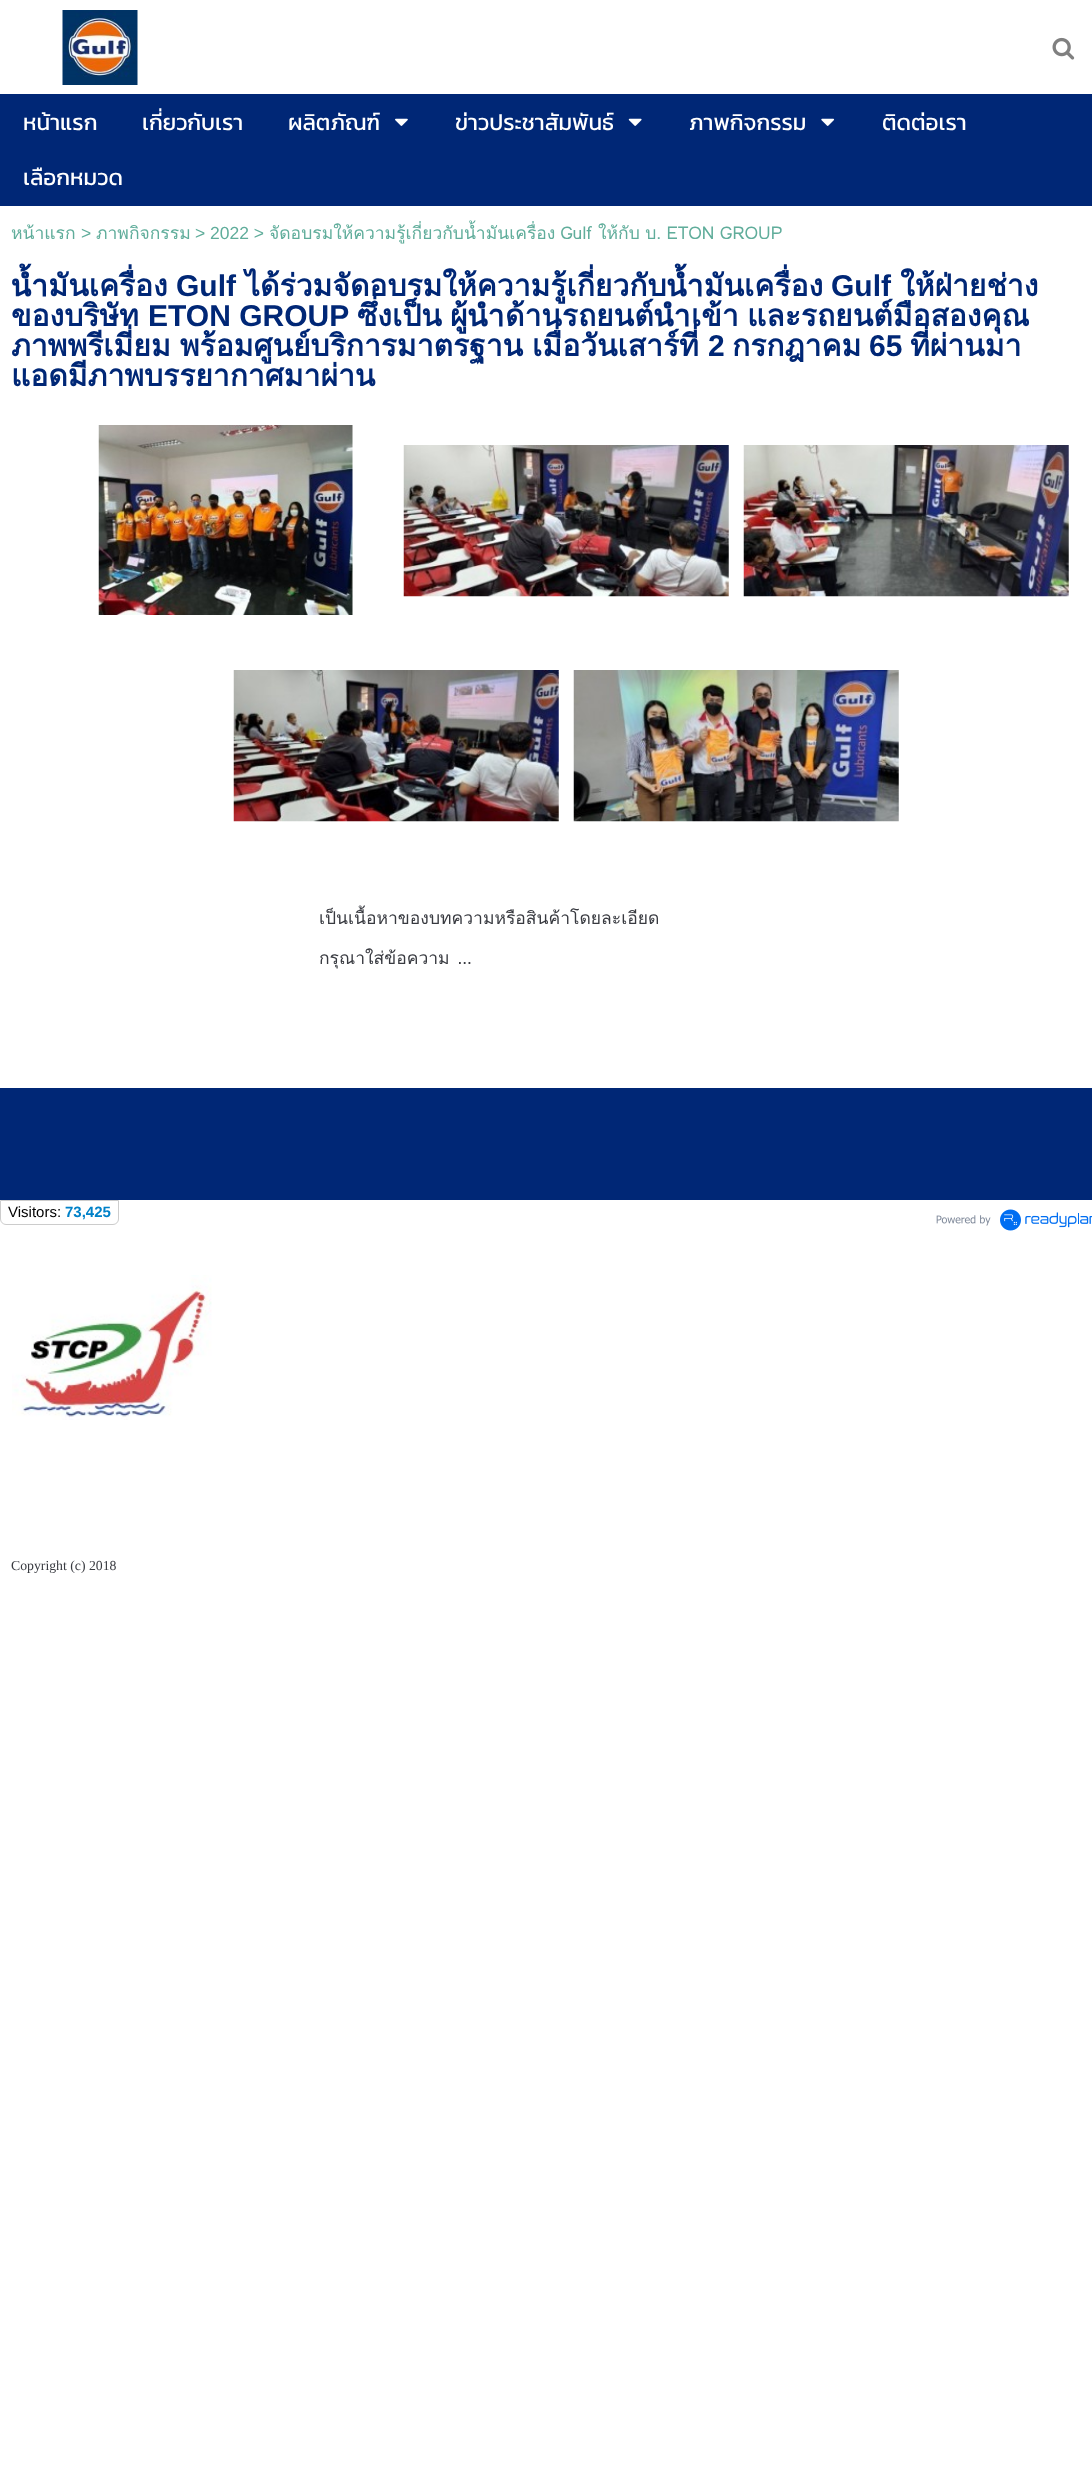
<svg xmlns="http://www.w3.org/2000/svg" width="1092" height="2488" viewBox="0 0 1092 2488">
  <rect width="100%" height="100%" fill="rgb(255,255,255)"/>
  <image x="62" y="10" width="76" height="75" href="pic1.png"/>
  <image x="1052" y="37" width="23" height="23" href="pic2.png"/>
  <rect x="0" y="94" width="1092" height="112" fill="rgb(0,39,118)"/>
  <g font-family="Kanit" font-size="22.5" fill="rgb(255,255,255)">
    <text x="23" y="130">หน้าแรก</text>
    <text x="142" y="130">เกี่ยวกับเรา</text>
    <text x="288" y="130">ผลิตภัณฑ์</text>
  </g>
  <image x="395" y="118" width="13" height="8" href="pic3.png"/>
  <text x="455" y="130" font-family="Kanit" font-size="22.5" fill="rgb(255,255,255)">ข่าวประชาสัมพันธ์</text>
  <image x="628" y="118" width="14" height="8" href="pic4.png"/>
  <text x="689" y="130" font-family="Kanit" font-size="22.5" fill="rgb(255,255,255)">ภาพกิจกรรม</text>
  <image x="821" y="118" width="14" height="8" href="pic5.png"/>
  <g font-family="Kanit" font-size="22.5" fill="rgb(255,255,255)">
    <text x="882" y="130">ติดต่อเรา</text>
    <text x="23" y="185">เลือกหมวด</text>
  </g>
  <text x="11" y="239" font-family="Loma" font-size="17.5" fill="rgb(96,173,155)">หน้าแรก</text>
  <text x="81" y="239" font-family="Liberation Sans" font-size="17.5" fill="rgb(96,173,155)">&gt;</text>
  <text x="96" y="239" font-family="Loma" font-size="17.5" fill="rgb(96,173,155)">ภาพกิจกรรม</text>
  <text x="195" y="239" font-family="Liberation Sans" font-size="17.5" fill="rgb(96,173,155)">&gt; 2022 &gt;</text>
  <g font-family="Loma" font-size="17.5" fill="rgb(96,173,155)">
    <text x="269" y="239" word-spacing="-1">จัดอบรมให้ความรู้เกี่ยวกับน้ำมันเครื่อง Gulf</text>
    <text x="598" y="239" word-spacing="-0.5">ให้กับ บ. ETON GROUP</text>
  </g>
  <text x="11" y="296" font-family="Loma" font-size="30" font-weight="bold" fill="rgb(0,39,118)">น้ำมันเครื่อง</text>
  <text x="176" y="296" font-family="Liberation Sans" font-size="30" font-weight="bold" fill="rgb(0,39,118)">Gulf</text>
  <text x="245" y="296" font-family="Loma" font-size="30" font-weight="bold" fill="rgb(0,39,118)">ได้ร่วมจัดอบรมให้ความรู้เกี่ยวกับน้ำมันเครื่อง</text>
  <text x="831" y="296" font-family="Liberation Sans" font-size="30" font-weight="bold" fill="rgb(0,39,118)">Gulf</text>
  <g font-family="Loma" font-size="30" font-weight="bold" fill="rgb(0,39,118)">
    <text x="900" y="296">ให้ฝ่ายช่าง</text>
    <text x="11" y="326">ของบริษัท</text>
  </g>
  <text x="148" y="326" font-family="Liberation Sans" font-size="30" font-weight="bold" fill="rgb(0,39,118)">ETON GROUP</text>
  <g font-family="Loma" font-size="30" font-weight="bold" fill="rgb(0,39,118)">
    <text x="357" y="326">ซึ่งเป็น</text>
    <text x="450" y="326">ผู้นำด้านรถยนต์นำเข้า</text>
    <text x="747" y="326">และรถยนต์มือสองคุณ</text>
    <text x="11" y="356" word-spacing="-1">ภาพพรีเมี่ยม พร้อมศูนย์บริการมาตรฐาน เมื่อวันเสาร์ที่</text>
  </g>
  <text x="708" y="356" font-family="Liberation Sans" font-size="30" font-weight="bold" fill="rgb(0,39,118)">2</text>
  <text x="732" y="356" font-family="Loma" font-size="30" font-weight="bold" fill="rgb(0,39,118)">กรกฎาคม</text>
  <text x="869" y="356" font-family="Liberation Sans" font-size="30" font-weight="bold" fill="rgb(0,39,118)">65</text>
  <g font-family="Loma" font-size="30" font-weight="bold" fill="rgb(0,39,118)">
    <text x="910" y="356">ที่ผ่านมา</text>
    <text x="11" y="386">แอดมีภาพบรรยากาศมาผ่าน</text>
  </g>
  <image x="98" y="425" width="255" height="190" href="pic6.png"/>
  <image x="403" y="445" width="326" height="152" href="pic7.png"/>
  <image x="743" y="445" width="326" height="152" href="pic8.png"/>
  <image x="233" y="670" width="326" height="152" href="pic9.png"/>
  <image x="573" y="670" width="326" height="152" href="pic10.png"/>
  <g font-family="Loma" font-size="17.5" fill="rgb(56,58,64)">
    <text x="319" y="924">เป็นเนื้อหาของบทความหรือสินค้าโดยละเอียด</text>
    <text x="319" y="964" word-spacing="2">กรุณาใส่ข้อความ …</text>
  </g>
  <path d="M.5 1200.5H118.5V1219C118.5 1222 116 1224.5 113 1224.5H6C3 1224.5 .5 1222 .5 1219Z" fill="none" stroke="rgb(204,204,204)"/>
  <text x="8" y="1217" font-family="Liberation Sans" font-size="15" fill="rgb(0,0,0)">Visitors:</text>
  <text x="65" y="1217" font-family="Liberation Sans" font-size="15" font-weight="bold" fill="rgb(0,129,200)">73,425</text>
  <image x="936" y="1209" width="156" height="22" href="pic11.png"/>
  <rect x="0" y="1088" width="1092" height="112" fill="rgb(0,39,118)"/>
  <image x="12" y="1275" width="200" height="145" href="pic12.png"/>
  <text x="11" y="1570" font-family="Liberation Serif" font-size="13.75" fill="rgb(56,58,64)">Copyright (c) 2018</text>
</svg>
